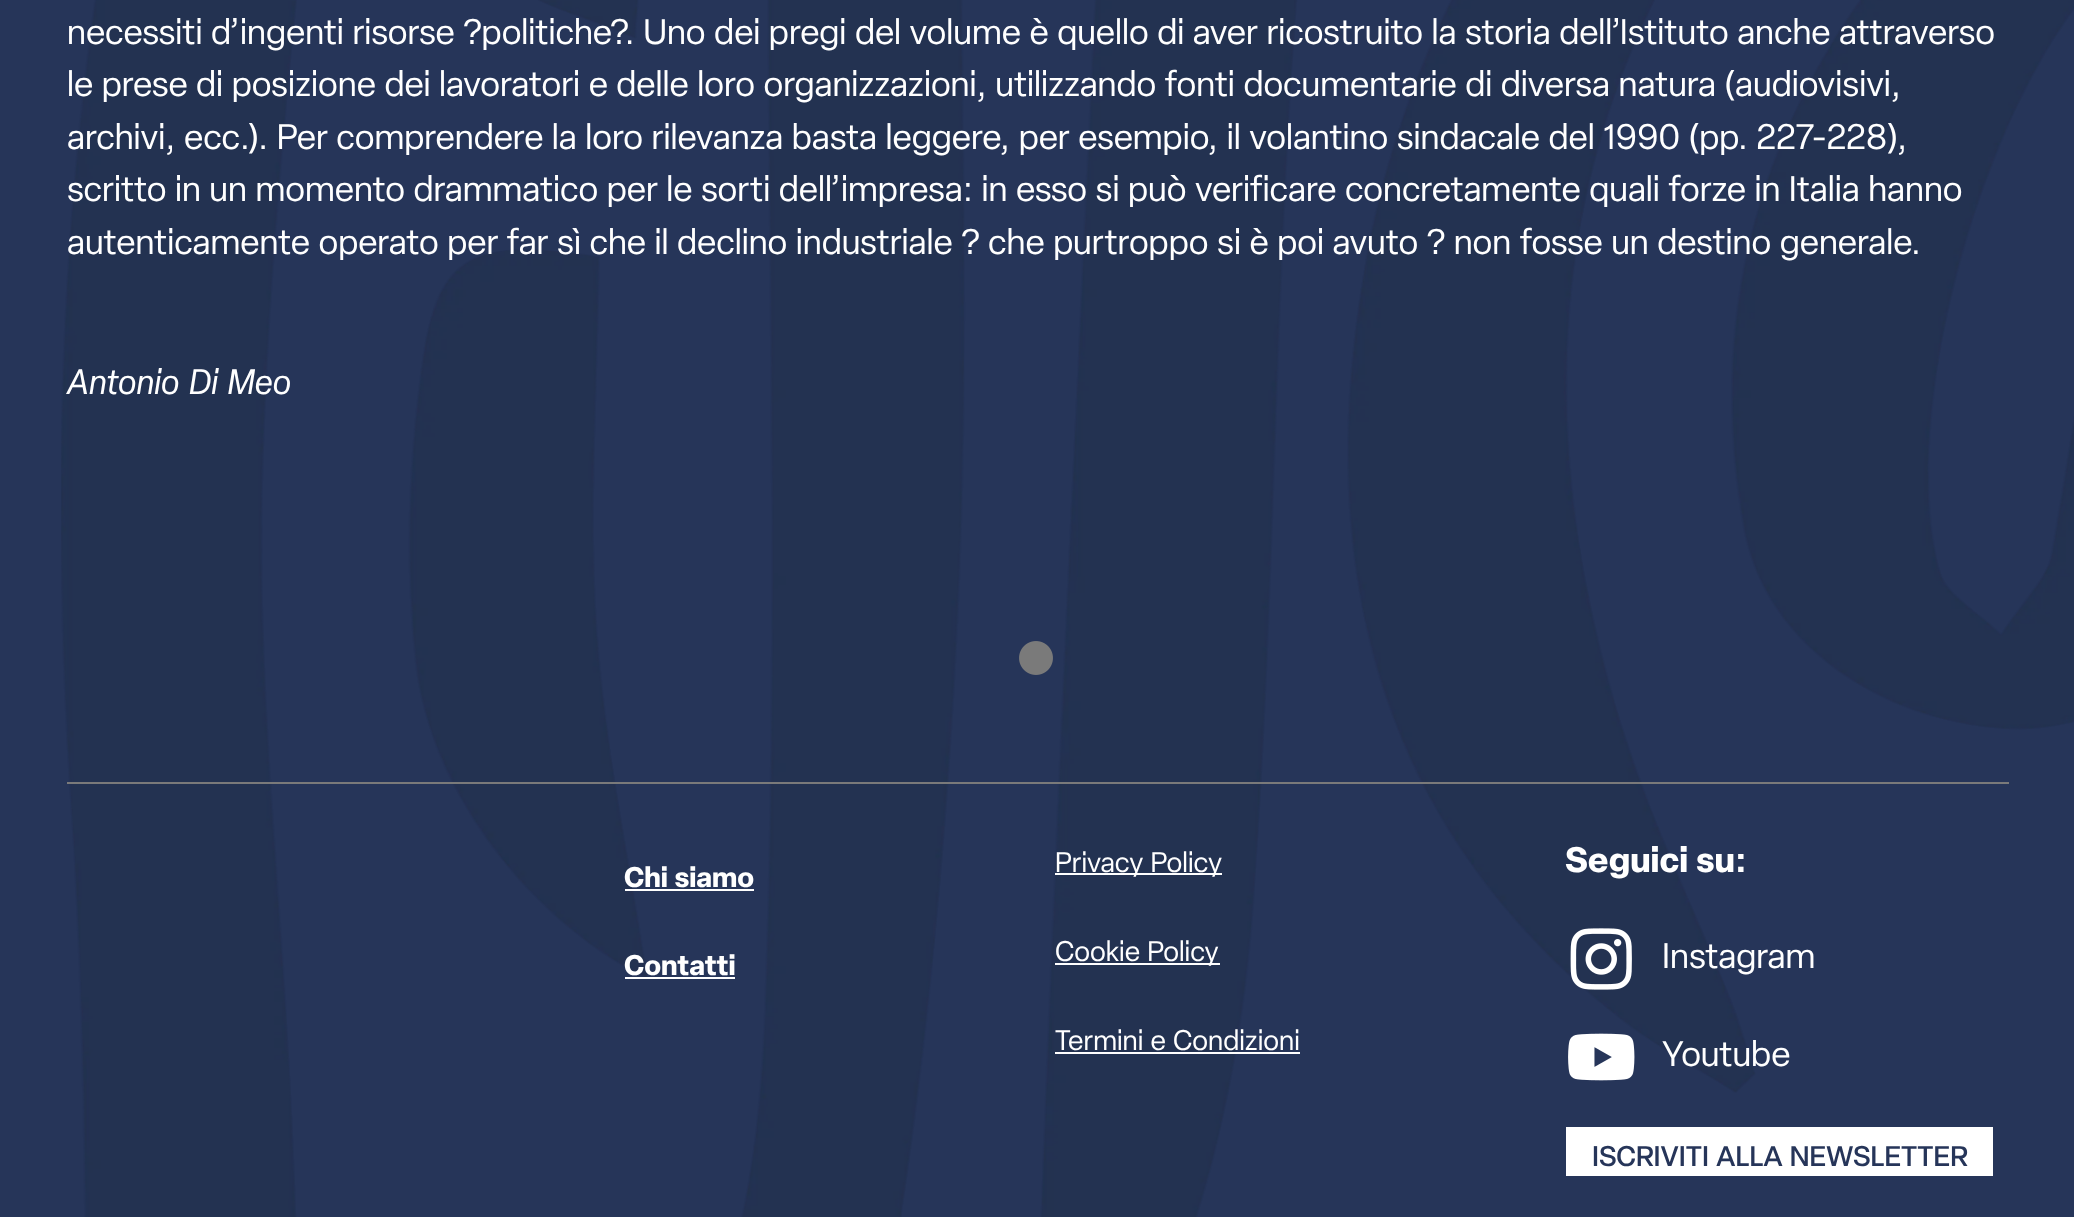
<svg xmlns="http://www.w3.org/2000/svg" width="2074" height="1217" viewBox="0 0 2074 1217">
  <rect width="100%" height="100%" fill="rgb(38,53,89)"/>
  <image x="61" y="0" width="2013" height="1217" href="pic1.png"/>
  <g font-family="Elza" font-size="35" fill="rgb(255,255,255)">
    <text>
      <tspan x="67" y="44" word-spacing="1.75">necessiti d’ingenti risorse ?politiche?. Uno dei pregi del volume è quello di aver ricostruito la storia dell’Istituto anche attraverso</tspan>
      <tspan x="67" y="96" word-spacing="1.75">le prese di posizione dei lavoratori e delle loro organizzazioni, utilizzando fonti documentarie di diversa natura (audiovisivi,</tspan>
      <tspan x="67" y="149" word-spacing="1.75">archivi, ecc.). Per comprendere la loro rilevanza basta leggere, per esempio, il volantino sindacale del 1990 (pp. 227-228),</tspan>
      <tspan x="67" y="201" word-spacing="1.75">scritto in un momento drammatico per le sorti dell’impresa: in esso si può verificare concretamente quali forze in Italia hanno</tspan>
      <tspan x="67" y="254" word-spacing="1.75">autenticamente operato per far sì che il declino industriale ? che purtroppo si è poi avuto ? non fosse un destino generale.</tspan>
    </text>
  </g>
  <text x="67" y="394" word-spacing="3" font-family="Elza" font-size="35" font-style="italic" fill="rgb(255,255,255)">Antonio Di Meo</text>
  <rect x="67" y="782" width="1942" height="2" fill="rgb(122,122,122)"/>
  <image x="1019" y="641" width="34" height="34" href="pic2.png"/>
  <text x="624" y="887" word-spacing="1.75" font-family="Elza" font-size="28" font-weight="bold" fill="rgb(255,255,255)">Chi siamo</text>
  <rect x="625" y="889" width="129" height="2" fill="rgb(255,255,255)"/>
  <text x="624" y="975" font-family="Elza" font-size="28" font-weight="bold" fill="rgb(255,255,255)">Contatti</text>
  <rect x="625" y="977" width="110" height="2" fill="rgb(255,255,255)"/>
  <rect x="1055" y="873" width="167" height="2" fill="rgb(255,255,255)"/>
  <text x="1055" y="872" word-spacing="1.75" font-family="Elza" font-size="28" fill="rgb(255,255,255)">Privacy Policy</text>
  <rect x="1055" y="963" width="165" height="2" fill="rgb(255,255,255)"/>
  <g font-family="Elza" font-size="28" fill="rgb(255,255,255)">
    <text x="1055" y="961" word-spacing="1.75">Cookie Policy</text>
    <text x="1055" y="1050" word-spacing="1.75">Termini e Condizioni</text>
  </g>
  <rect x="1055" y="1052" width="245" height="2" fill="rgb(255,255,255)"/>
  <text x="1565" y="872" word-spacing="1.75" font-family="Elza" font-size="35" font-weight="bold" fill="rgb(255,255,255)">Seguici su:</text>
  <image x="1570" y="928" width="62" height="62" href="pic3.png"/>
  <text x="1662" y="968" font-family="Elza" font-size="35" fill="rgb(255,255,255)">Instagram</text>
  <image x="1568" y="1033" width="67" height="48" href="pic4.png"/>
  <text x="1662" y="1066" font-family="Elza" font-size="35" fill="rgb(255,255,255)">Youtube</text>
  <rect x="1566" y="1127" width="427" height="49" fill="rgb(255,255,255)"/>
  <text x="1592" y="1166" word-spacing="1.75" font-family="Elza" font-size="28" font-weight="500" fill="rgb(38,53,89)">ISCRIVITI ALLA NEWSLETTER</text>
</svg>
